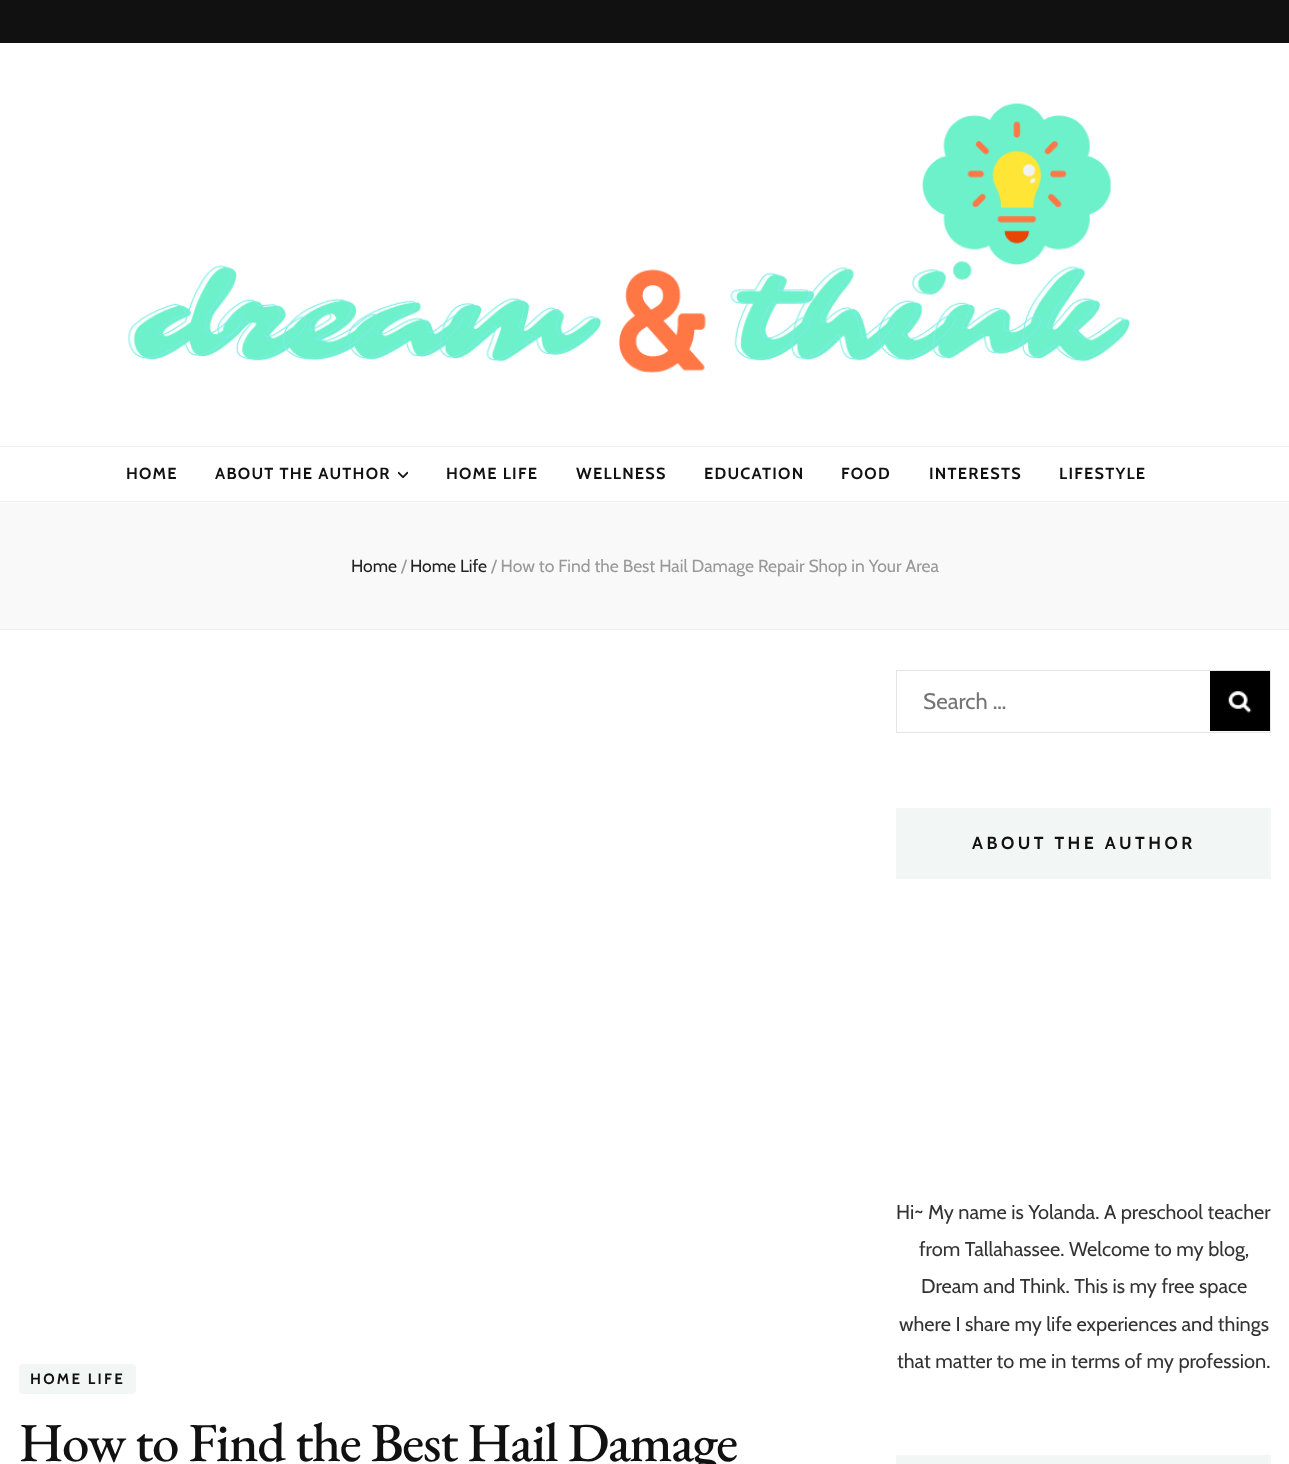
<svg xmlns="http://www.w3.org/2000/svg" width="1289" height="1464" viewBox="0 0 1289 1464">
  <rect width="100%" height="100%" fill="rgb(255,255,255)"/>
  <rect x="0" y="0" width="1289" height="43" fill="rgb(17,17,17)"/>
  <image x="128" y="103" width="1002" height="270" href="pic1.png"/>
  <rect x="0" y="446" width="1289" height="1" fill="rgb(238,238,238)"/>
  <rect x="0" y="501" width="1289" height="1" fill="rgb(238,238,238)"/>
  <g font-family="Cabin" font-size="16.25" font-weight="bold" letter-spacing="1.25" fill="rgb(17,17,17)">
    <text x="126" y="479">HOME</text>
    <text x="215" y="479">ABOUT THE AUTHOR</text>
  </g>
  <image x="398" y="471" width="10" height="8" href="pic2.png"/>
  <g font-family="Cabin" font-size="16.25" font-weight="bold" letter-spacing="1.25" fill="rgb(17,17,17)">
    <text x="446" y="479">HOME LIFE</text>
    <text x="576" y="479">WELLNESS</text>
    <text x="704" y="479">EDUCATION</text>
    <text x="841" y="479">FOOD</text>
    <text x="929" y="479">INTERESTS</text>
    <text x="1059" y="479">LIFESTYLE</text>
  </g>
  <rect x="0" y="503" width="1289" height="126" fill="rgb(249,249,249)"/>
  <rect x="0" y="629" width="1289" height="1" fill="rgb(238,238,238)"/>
  <text x="351" y="572" font-family="Cabin" font-size="17.5" fill="rgb(34,34,34)">Home</text>
  <text x="401" y="572" font-family="Cabin" font-size="17.5" fill="rgb(153,153,153)">/</text>
  <text x="410" y="572" font-family="Cabin" font-size="17.5" fill="rgb(34,34,34)">Home Life</text>
  <text x="491" y="572" font-family="Cabin" font-size="17.5" fill="rgb(153,153,153)">/ How to Find the Best Hail Damage Repair Shop in Your Area</text>
  <rect x="896.5" y="670.5" width="374" height="62" fill="none" stroke="rgb(229,229,229)"/>
  <text x="923" y="709" font-family="Cabin" font-size="22.5" fill="rgb(117,117,117)">Search …</text>
  <rect x="1210" y="671" width="60" height="60" fill="rgb(0,0,0)"/>
  <image x="1228" y="691" width="24" height="22" href="pic3.png"/>
  <rect x="896" y="808" width="375" height="71" fill="rgb(242,247,246)"/>
  <text x="972" y="849" font-family="Cabin" font-size="17.5" font-weight="bold" letter-spacing="3.5" fill="rgb(17,17,17)">ABOUT THE AUTHOR</text>
  <g font-family="Cabin" font-size="20" fill="rgb(51,51,51)">
    <text x="896" y="1219">Hi~ My name is Yolanda. A preschool teacher</text>
    <text x="919" y="1256">from Tallahassee. Welcome to my blog,</text>
    <text x="921" y="1293">Dream and Think. This is my free space</text>
    <text x="899" y="1331">where I share my life experiences and things</text>
    <text x="897" y="1368">that matter to me in terms of my profession.</text>
  </g>
  <rect x="896" y="1455" width="375" height="9" fill="rgb(242,247,246)"/>
  <rect x="19" y="1364" width="117" height="30" rx="4" fill="rgb(242,247,246)"/>
  <text x="30" y="1384" font-family="Cabin" font-size="15" font-weight="bold" letter-spacing="2.25" fill="rgb(17,17,17)">HOME LIFE</text>
  <text x="19" y="1461" font-family="EB Garamond" font-size="55" font-weight="500" letter-spacing="-1.4" fill="rgb(17,17,17)">How to Find the Best Hail Damage</text>
</svg>
